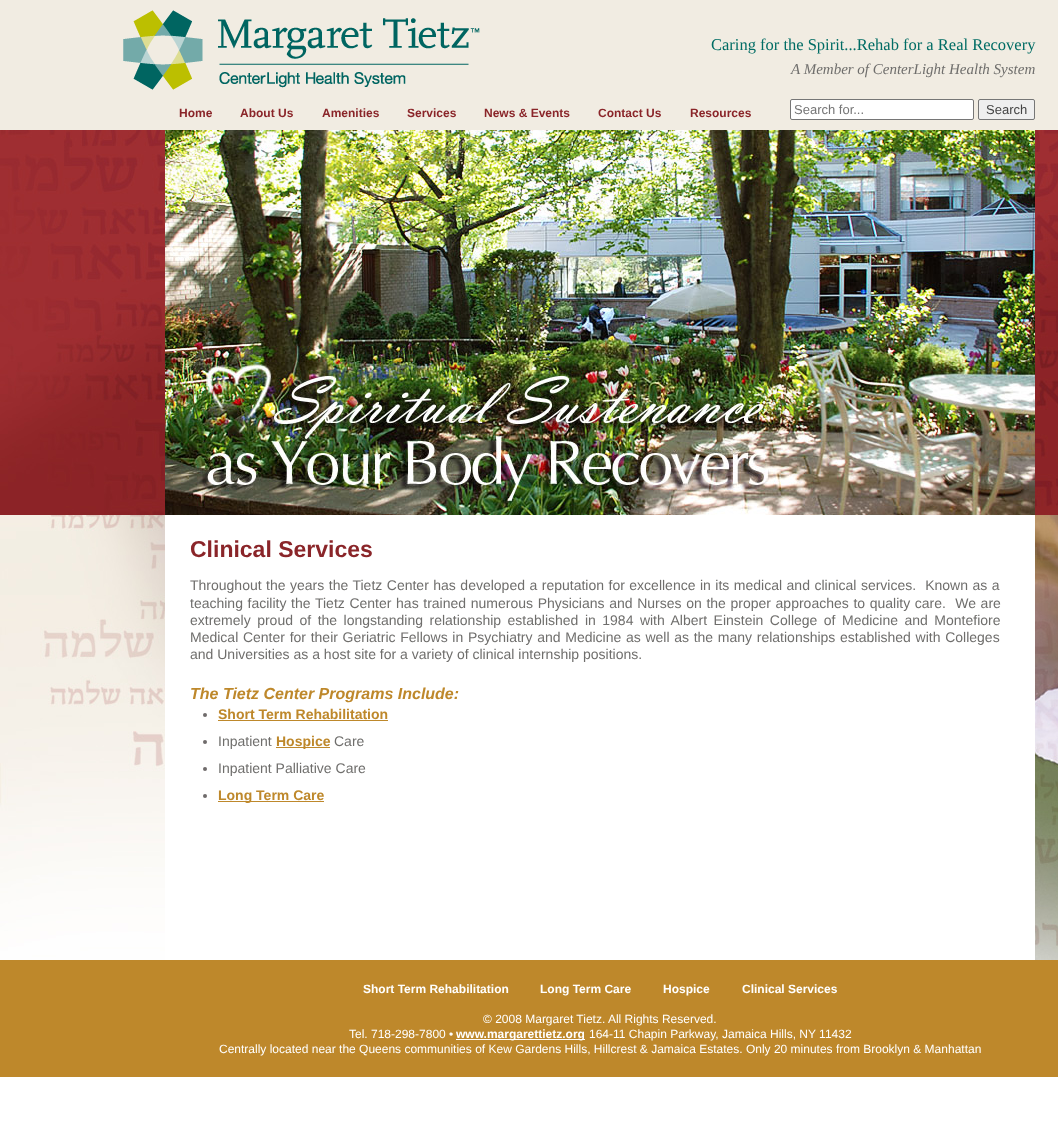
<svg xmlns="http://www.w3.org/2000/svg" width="1058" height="1148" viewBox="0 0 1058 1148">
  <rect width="100%" height="100%" fill="rgb(255,255,255)"/>
  <rect x="0" y="0" width="1058" height="130" fill="rgb(241,236,226)"/>
  <image x="123" y="10" width="357" height="80" href="pic1.png"/>
  <text x="711" y="50" font-family="Liberation Serif" font-size="16.5" fill="rgb(0,108,100)">Caring for the Spirit...Rehab for a Real Recovery</text>
  <text x="791" y="74" font-family="Liberation Serif" font-size="15" font-style="italic" fill="rgb(111,110,108)">A Member of CenterLight Health System</text>
  <rect x="790.5" y="99.5" width="183" height="20" rx="1.5" fill="rgb(255,255,255)" stroke="rgb(118,118,118)"/>
  <text x="794" y="114" font-family="Liberation Sans" font-size="13" fill="rgb(117,117,117)">Search for...</text>
  <rect x="978.5" y="99.5" width="56" height="20" rx="1.5" fill="rgb(239,239,239)" stroke="rgb(118,118,118)"/>
  <text x="986" y="114" font-family="Liberation Sans" font-size="13" fill="rgb(68,68,68)">Search</text>
  <g font-family="Liberation Sans" font-size="12" font-weight="bold" fill="rgb(138,37,41)">
    <text x="179" y="117">Home</text>
    <text x="240" y="117">About Us</text>
    <text x="322" y="117">Amenities</text>
    <text x="407" y="117">Services</text>
    <text x="484" y="117">News &amp; Events</text>
    <text x="598" y="117">Contact Us</text>
    <text x="690" y="117">Resources</text>
  </g>
  <image x="0" y="130" width="1058" height="385" href="pic2.png"/>
  <image x="165" y="130" width="870" height="385" href="pic3.png"/>
  <image x="0" y="515" width="1058" height="445" href="pic4.png"/>
  <rect x="165" y="515" width="870" height="445" fill="rgb(255,255,255)"/>
  <text x="190" y="557" font-family="Liberation Sans" font-size="23" font-weight="bold" fill="rgb(138,37,41)">Clinical Services</text>
  <g font-family="Liberation Sans" font-size="14" fill="rgb(111,110,108)">
    <text xml:space="preserve"><tspan x="190" y="590" word-spacing="0.6">Throughout the years the Tietz Center has developed a reputation for excellence in its medical and clinical services.  Known as a</tspan><tspan x="190" y="608" word-spacing="0.75">teaching facility the Tietz Center has trained numerous Physicians and Nurses on the proper approaches to quality care.  We are</tspan><tspan x="190" y="625" word-spacing="2.6">extremely proud of the longstanding relationship established in 1984 with Albert Einstein College of Medicine and Montefiore</tspan><tspan x="190" y="642" word-spacing="0.8">Medical Center for their Geriatric Fellows in Psychiatry and Medicine as well as the many relationships established with Colleges</tspan><tspan x="190" y="659">and Universities as a host site for a variety of clinical internship positions.</tspan></text>
  </g>
  <text x="190" y="699" font-family="Liberation Sans" font-size="16" font-weight="bold" font-style="italic" fill="rgb(190,136,43)">The Tietz Center Programs Include:</text>
  <circle cx="205" cy="715" r="2" fill="rgb(111,107,107)"/>
  <text x="218" y="719" font-family="Liberation Sans" font-size="14" font-weight="bold" fill="rgb(190,136,43)">Short Term Rehabilitation</text>
  <rect x="218" y="720" width="170" height="1" fill="rgb(190,136,43)"/>
  <circle cx="205" cy="742" r="2" fill="rgb(111,107,107)"/>
  <text x="218" y="746" font-family="Liberation Sans" font-size="14" fill="rgb(111,110,108)">Inpatient</text>
  <rect x="276" y="747" width="54" height="1" fill="rgb(190,136,43)"/>
  <text x="276" y="746" font-family="Liberation Sans" font-size="14" font-weight="bold" fill="rgb(190,136,43)">Hospice</text>
  <text x="334" y="746" font-family="Liberation Sans" font-size="14" fill="rgb(111,110,108)">Care</text>
  <circle cx="205" cy="769" r="2" fill="rgb(111,107,107)"/>
  <text x="218" y="773" font-family="Liberation Sans" font-size="14" fill="rgb(111,110,108)">Inpatient Palliative Care</text>
  <circle cx="205" cy="796" r="2" fill="rgb(111,107,107)"/>
  <rect x="218" y="801" width="106" height="1" fill="rgb(190,136,43)"/>
  <text x="218" y="800" font-family="Liberation Sans" font-size="14" font-weight="bold" fill="rgb(190,136,43)">Long Term Care</text>
  <rect x="0" y="960" width="1058" height="117" fill="rgb(190,136,43)"/>
  <g font-family="Liberation Sans" font-size="12" font-weight="bold" fill="rgb(255,255,255)">
    <text x="363" y="993">Short Term Rehabilitation</text>
    <text x="540" y="993">Long Term Care</text>
    <text x="663" y="993">Hospice</text>
    <text x="742" y="993">Clinical Services</text>
  </g>
  <g font-family="Liberation Sans" font-size="12" fill="rgb(255,255,255)">
    <text x="483" y="1023">© 2008 Margaret Tietz. All Rights Reserved.</text>
    <text x="349" y="1038">Tel. 718-298-7800 •</text>
  </g>
  <rect x="456" y="1039" width="129" height="1" fill="rgb(255,255,255)"/>
  <text x="456" y="1038" font-family="Liberation Sans" font-size="12" font-weight="bold" fill="rgb(255,255,255)">www.margarettietz.org</text>
  <g font-family="Liberation Sans" font-size="12" fill="rgb(255,255,255)">
    <text x="589" y="1038">164-11 Chapin Parkway, Jamaica Hills, NY 11432</text>
    <text x="219" y="1053">Centrally located near the Queens communities of Kew Gardens Hills, Hillcrest &amp; Jamaica Estates. Only 20 minutes from Brooklyn &amp; Manhattan</text>
  </g>
</svg>
